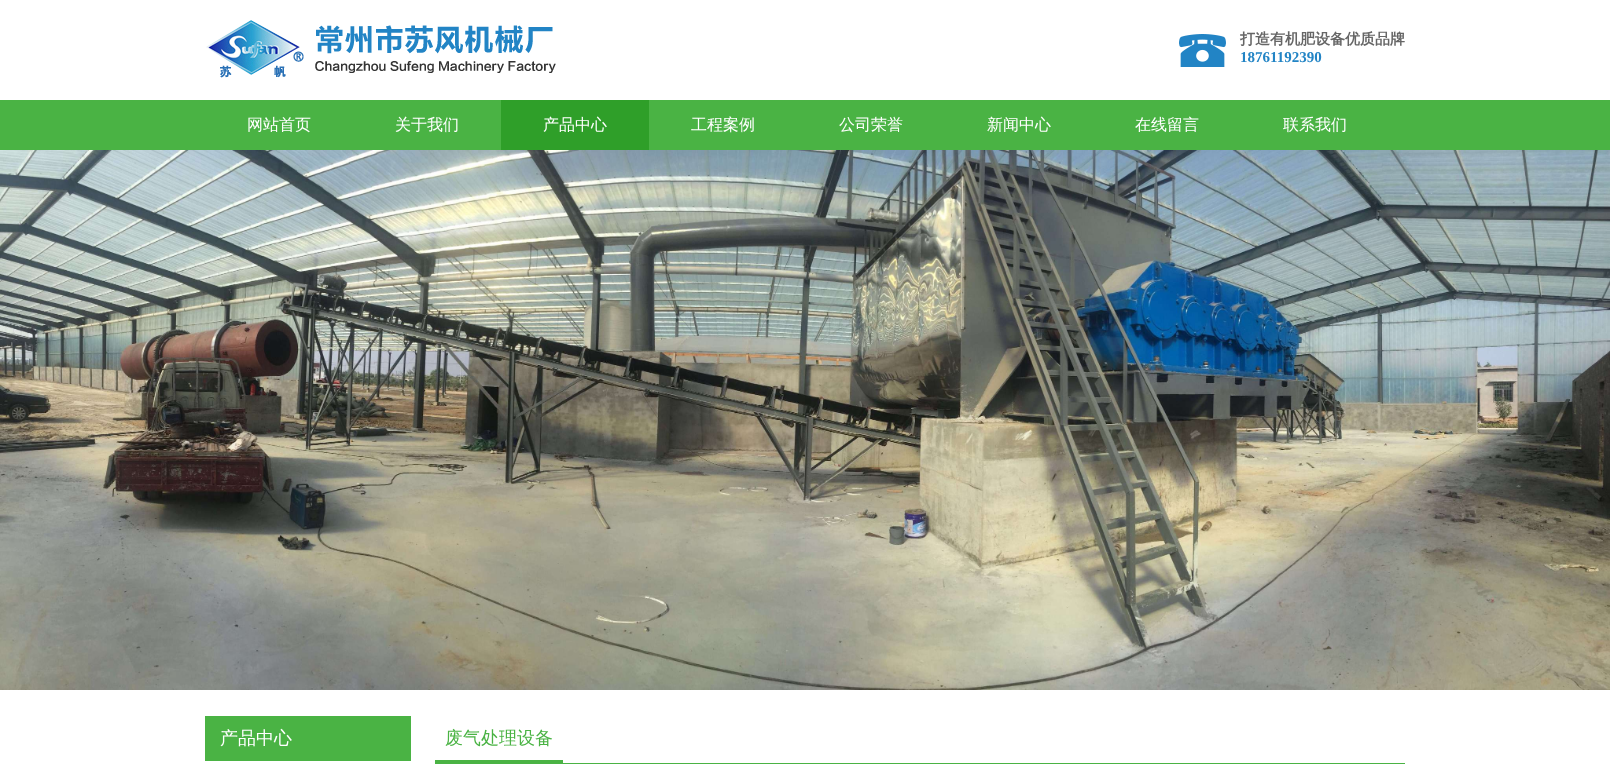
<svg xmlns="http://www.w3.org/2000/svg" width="1610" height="779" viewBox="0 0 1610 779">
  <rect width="100%" height="100%" fill="rgb(255,255,255)"/>
  <image x="206" y="20" width="350" height="58" href="pic1.png"/>
  <image x="1179" y="34" width="47" height="33" href="pic2.png"/>
  <text x="1240" y="44" font-family="WenQuanYi Zen Hei" font-size="15" font-weight="bold" fill="rgb(102,102,102)">打造有机肥设备优质品牌</text>
  <text x="1240" y="62" font-family="Liberation Serif" font-size="15" font-weight="bold" fill="rgb(34,132,197)">18761192390</text>
  <rect x="0" y="100" width="1610" height="50" fill="rgb(74,179,68)"/>
  <g font-family="WenQuanYi Zen Hei" font-size="16" font-weight="500" fill="rgb(255,255,255)">
    <text x="247" y="130">网站首页</text>
    <text x="395" y="130">关于我们</text>
  </g>
  <rect x="501" y="100" width="148" height="50" fill="rgb(47,159,41)"/>
  <g font-family="WenQuanYi Zen Hei" font-size="16" font-weight="500" fill="rgb(255,255,255)">
    <text x="543" y="130">产品中心</text>
    <text x="691" y="130">工程案例</text>
    <text x="839" y="130">公司荣誉</text>
    <text x="987" y="130">新闻中心</text>
    <text x="1135" y="130">在线留言</text>
    <text x="1283" y="130">联系我们</text>
  </g>
  <image x="0" y="150" width="1610" height="540" href="pic3.png"/>
  <rect x="205" y="716" width="206" height="45" fill="rgb(74,179,68)"/>
  <text x="220" y="744" font-family="WenQuanYi Zen Hei" font-size="18" font-weight="500" fill="rgb(255,255,255)">产品中心</text>
  <rect x="435" y="763" width="970" height="1" fill="rgb(74,179,68)"/>
  <rect x="435" y="760" width="128" height="3" fill="rgb(74,179,68)"/>
  <text x="445" y="744" font-family="WenQuanYi Zen Hei" font-size="18" font-weight="500" fill="rgb(74,179,68)">废气处理设备</text>
</svg>
